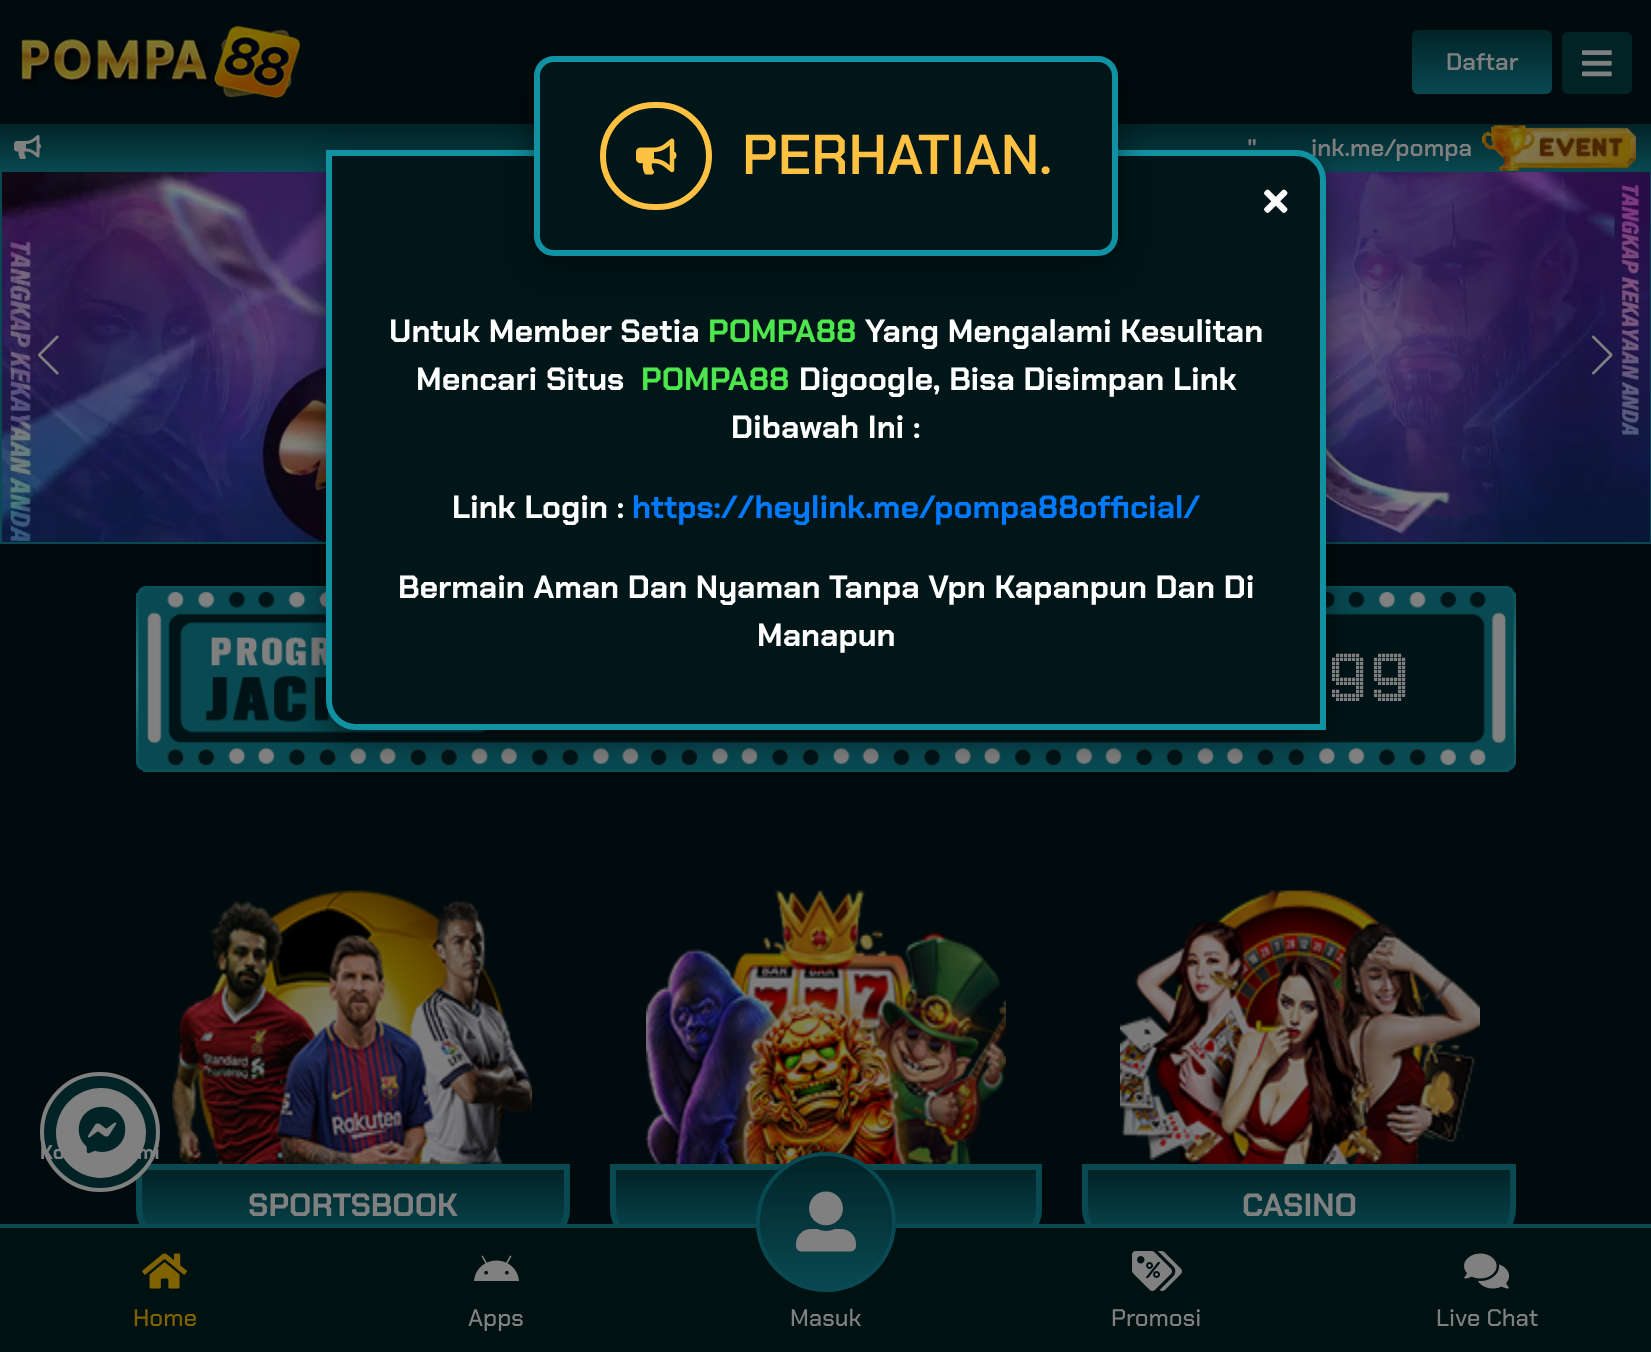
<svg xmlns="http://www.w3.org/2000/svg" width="1651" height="1352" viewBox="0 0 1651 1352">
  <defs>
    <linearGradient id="g1" gradientUnits="userSpaceOnUse" x1="1482" y1="30" x2="1482" y2="94"><stop offset="0" stop-color="rgb(1,35,38)"/><stop offset="1" stop-color="rgb(9,73,82)"/></linearGradient>
    <linearGradient id="g2" gradientUnits="userSpaceOnUse" x1="826" y1="124" x2="826" y2="172"><stop offset="0" stop-color="rgb(1,35,38)"/><stop offset="1" stop-color="rgb(9,73,82)"/></linearGradient>
    <clipPath id="clip1"><path d="M136 1164H570V1208C570 1230 552 1248 530 1248H176C154 1248 136 1230 136 1208Z"/></clipPath>
    <linearGradient id="g3" gradientUnits="userSpaceOnUse" x1="353" y1="1170" x2="353" y2="1242"><stop offset="0" stop-color="rgb(1,35,38)"/><stop offset="1" stop-color="rgb(9,73,82)"/></linearGradient>
    <clipPath id="clip2"><path d="M610 1164H1042V1208C1042 1230 1024 1248 1002 1248H650C628 1248 610 1230 610 1208Z"/></clipPath>
    <linearGradient id="g4" gradientUnits="userSpaceOnUse" x1="826" y1="1170" x2="826" y2="1242"><stop offset="0" stop-color="rgb(1,35,38)"/><stop offset="1" stop-color="rgb(9,73,82)"/></linearGradient>
    <clipPath id="clip3"><path d="M1082 1164H1516V1208C1516 1230 1498 1248 1476 1248H1122C1100 1248 1082 1230 1082 1208Z"/></clipPath>
    <linearGradient id="g5" gradientUnits="userSpaceOnUse" x1="1299" y1="1170" x2="1299" y2="1242"><stop offset="0" stop-color="rgb(1,35,38)"/><stop offset="1" stop-color="rgb(9,73,82)"/></linearGradient>
    <clipPath id="clip4"><rect x="756" y="1152" width="140" height="140" rx="70"/></clipPath>
    <linearGradient id="g6" gradientUnits="userSpaceOnUse" x1="826" y1="1156" x2="826" y2="1288"><stop offset="0" stop-color="rgb(1,35,38)"/><stop offset="1" stop-color="rgb(9,73,82)"/></linearGradient>
  </defs>
  <rect width="100%" height="100%" fill="rgb(1,11,13)"/>
  <image x="21" y="26" width="279" height="72" href="pic1.png"/>
  <rect x="1412" y="30" width="140" height="64" rx="6" fill="url(#g1)"/>
  <text x="1446" y="70" font-family="Chakra Petch" font-size="24" font-weight="600" fill="rgb(128,128,128)">Daftar</text>
  <rect x="1562" y="32" width="70" height="62" rx="6" fill="rgb(1,35,38)"/>
  <image x="1582" y="50" width="30" height="27" href="pic2.png"/>
  <rect x="0" y="124" width="1651" height="48" fill="url(#g2)"/>
  <image x="14" y="135" width="27" height="24" href="pic3.png"/>
  <g font-family="Chakra Petch" font-size="24" font-weight="600" fill="rgb(128,128,128)">
    <text x="1247" y="156">"</text>
    <text x="1311" y="156">ink.me/pompa</text>
  </g>
  <image x="1482" y="125" width="154" height="46" href="pic4.png"/>
  <g clip-path="url(#clip1)">
    <rect x="136" y="1170" width="434" height="54" fill="url(#g3)"/>
  </g>
  <path d="M139 1167H567V1208C567 1228.5 550.5 1245 530 1245H176C155.5 1245 139 1228.5 139 1208Z" fill="none" stroke="rgb(9,73,82)" stroke-width="6"/>
  <circle cx="100" cy="1132" r="58" fill="rgb(1,35,38)" stroke="rgb(128,128,128)" stroke-width="4"/>
  <circle cx="101" cy="1133" r="45" fill="rgb(128,128,128)"/>
  <image x="78" y="1106" width="48" height="48" href="pic5.png"/>
  <g font-family="Chakra Petch" font-size="20" font-weight="bold" fill="rgb(128,128,128)">
    <text x="40" y="1159">Ko</text>
    <text x="137" y="1159">mi</text>
  </g>
  <rect x="1650" y="172" width="1" height="372" fill="rgb(9,73,82)"/>
  <rect x="0" y="542" width="1651" height="2" fill="rgb(9,73,82)"/>
  <image x="2" y="172" width="1648" height="370" href="pic8.png"/>
  <image x="136" y="586" width="1380" height="186" href="pic11.png"/>
  <rect x="326" y="160" width="1000" height="580" rx="30" fill="rgba(0,0,0,0.5)" filter="blur(15px)"/>
  <path d="M329 153H1296C1311 153 1323 165 1323 180V727H356C341 727 329 715 329 700Z" fill="rgb(1,22,25)" stroke="rgb(17,146,163)" stroke-width="6"/>
  <rect x="534" y="66" width="584" height="200" rx="20" fill="rgba(0,0,0,0.5)" filter="blur(15px)"/>
  <rect x="537" y="59" width="578" height="194" rx="17" fill="rgb(1,22,25)" stroke="rgb(17,146,163)" stroke-width="6"/>
  <rect x="603" y="105" width="106" height="102" rx="51" fill="none" stroke="rgb(255,193,65)" stroke-width="6"/>
  <image x="636" y="138" width="41" height="37" href="pic6.png"/>
  <text x="742" y="174" font-family="Chakra Petch" font-size="56" font-weight="600" fill="rgb(255,193,65)">PERHATIAN.</text>
  <image x="1264" y="189" width="24" height="24" href="pic7.png"/>
  <text x="389" y="342" font-family="Chakra Petch" font-size="32" font-weight="bold" fill="rgb(255,255,255)">Untuk Member Setia</text>
  <text x="708" y="342" font-family="Chakra Petch" font-size="32" font-weight="bold" fill="rgb(77,230,77)">POMPA88</text>
  <g font-family="Chakra Petch" font-size="32" font-weight="bold" fill="rgb(255,255,255)">
    <text x="865" y="342">Yang Mengalami Kesulitan</text>
    <text x="416" y="390">Mencari Situs</text>
  </g>
  <text x="641" y="390" font-family="Chakra Petch" font-size="32" font-weight="bold" fill="rgb(77,230,77)">POMPA88</text>
  <g font-family="Chakra Petch" font-size="32" font-weight="bold" fill="rgb(255,255,255)">
    <text x="799" y="390">Digoogle, Bisa Disimpan Link</text>
    <text x="731" y="438">Dibawah Ini :</text>
    <text x="452" y="518">Link Login :</text>
  </g>
  <text x="632" y="518" font-family="Chakra Petch" font-size="32" font-weight="bold" fill="rgb(0,123,255)">https://heylink.me/pompa88official/</text>
  <g font-family="Chakra Petch" font-size="32" font-weight="bold" fill="rgb(255,255,255)">
    <text x="398" y="598">Bermain Aman Dan Nyaman Tanpa Vpn Kapanpun Dan Di</text>
    <text x="757" y="646">Manapun</text>
  </g>
  <rect x="0" y="172" width="2" height="372" fill="rgb(9,73,82)"/>
  <image x="38" y="335" width="21" height="40" href="pic9.png"/>
  <image x="1591" y="335" width="22" height="40" href="pic10.png"/>
  <text x="1332" y="701" font-family="'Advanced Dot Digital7'" font-size="40" font-weight="bold" letter-spacing="6" fill="rgb(128,128,128)">99</text>
  <image x="172" y="890" width="360" height="274" href="pic12.png"/>
  <text x="248" y="1216" font-family="Chakra Petch" font-size="32" font-weight="bold" fill="rgb(128,128,128)">SPORTSBOOK</text>
  <image x="646" y="890" width="360" height="274" href="pic13.png"/>
  <g clip-path="url(#clip2)">
    <rect x="610" y="1170" width="432" height="54" fill="url(#g4)"/>
  </g>
  <path d="M613 1167H1039V1208C1039 1228.5 1022.5 1245 1002 1245H650C629.5 1245 613 1228.5 613 1208Z" fill="none" stroke="rgb(9,73,82)" stroke-width="6"/>
  <image x="1120" y="890" width="360" height="274" href="pic14.png"/>
  <g clip-path="url(#clip3)">
    <rect x="1082" y="1170" width="434" height="54" fill="url(#g5)"/>
  </g>
  <path d="M1085 1167H1513V1208C1513 1228.5 1496.5 1245 1476 1245H1122C1101.5 1245 1085 1228.5 1085 1208Z" fill="none" stroke="rgb(9,73,82)" stroke-width="6"/>
  <text x="1242" y="1216" font-family="Chakra Petch" font-size="32" font-weight="bold" fill="rgb(128,128,128)">CASINO</text>
  <rect x="0" y="1228" width="1651" height="124" fill="rgb(0,17,17)"/>
  <rect x="0" y="1224" width="1651" height="4" fill="rgb(9,73,82)"/>
  <image x="142" y="1253" width="46" height="36" href="pic15.png"/>
  <text x="133" y="1326" font-family="Chakra Petch" font-size="24" font-weight="500" fill="rgb(128,98,0)">Home</text>
  <image x="474" y="1255" width="45" height="26" href="pic16.png"/>
  <text x="468" y="1326" font-family="Chakra Petch" font-size="24" font-weight="500" fill="rgb(128,128,128)">Apps</text>
  <g clip-path="url(#clip4)">
    <rect x="756" y="1156" width="140" height="132" fill="url(#g6)"/>
  </g>
  <circle cx="826" cy="1222" r="68" fill="none" stroke="rgb(9,73,82)" stroke-width="4"/>
  <image x="796" y="1191" width="60" height="61" href="pic17.png"/>
  <text x="790" y="1326" font-family="Chakra Petch" font-size="24" font-weight="500" fill="rgb(128,128,128)">Masuk</text>
  <image x="1132" y="1251" width="50" height="40" href="pic18.png"/>
  <image x="1146" y="1262" width="14" height="16" href="pic19.png"/>
  <text x="1111" y="1326" font-family="Chakra Petch" font-size="24" font-weight="500" fill="rgb(128,128,128)">Promosi</text>
  <image x="1464" y="1253" width="46" height="36" href="pic20.png"/>
  <text x="1436" y="1326" font-family="Chakra Petch" font-size="24" font-weight="500" fill="rgb(128,128,128)">Live Chat</text>
</svg>
